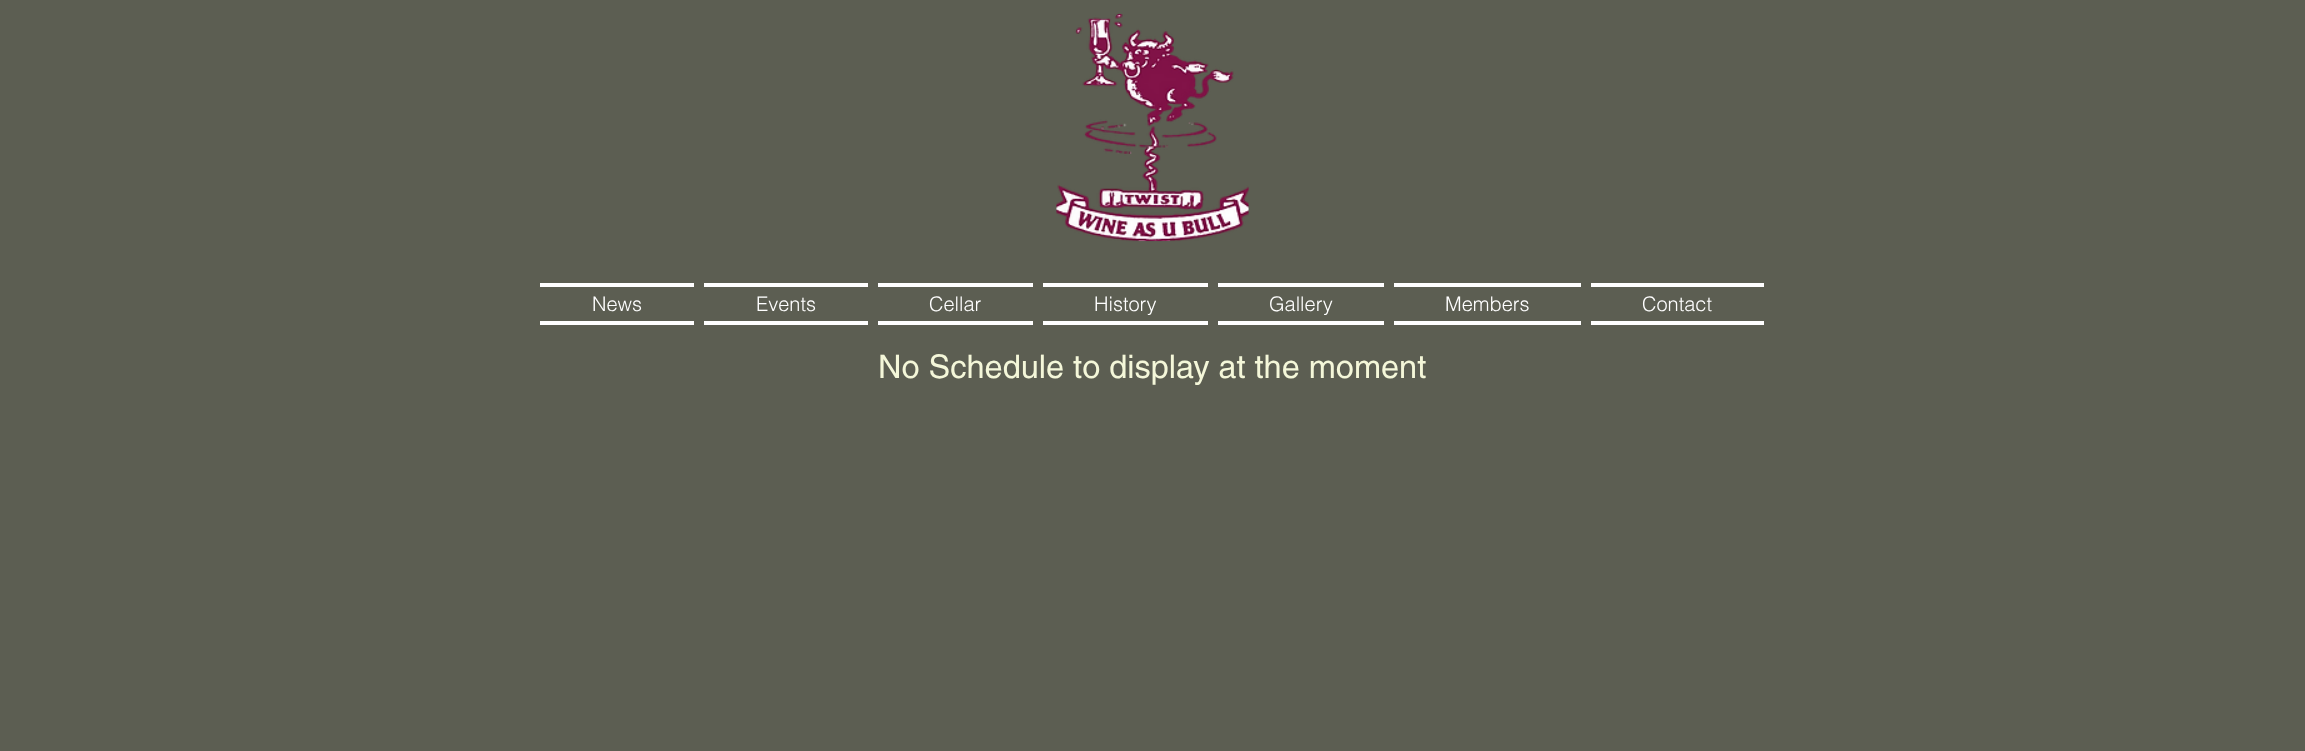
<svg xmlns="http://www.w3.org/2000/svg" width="2305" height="751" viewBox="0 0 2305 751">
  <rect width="100%" height="100%" fill="rgb(92,94,82)"/>
  <image x="1056" y="13" width="193" height="229" href="pic1.png"/>
  <rect x="540" y="283" width="154" height="4" fill="rgb(255,255,255)"/>
  <rect x="540" y="321" width="154" height="4" fill="rgb(255,255,255)"/>
  <text x="592" y="311" font-family="helvetica" font-size="20" font-weight="300" fill="rgb(255,255,255)">News</text>
  <rect x="704" y="283" width="164" height="4" fill="rgb(255,255,255)"/>
  <rect x="704" y="321" width="164" height="4" fill="rgb(255,255,255)"/>
  <text x="756" y="311" font-family="helvetica" font-size="20" font-weight="300" fill="rgb(255,255,255)">Events</text>
  <rect x="878" y="283" width="155" height="4" fill="rgb(255,255,255)"/>
  <rect x="878" y="321" width="155" height="4" fill="rgb(255,255,255)"/>
  <text x="929" y="311" font-family="helvetica" font-size="20" font-weight="300" fill="rgb(255,255,255)">Cellar</text>
  <rect x="1043" y="283" width="165" height="4" fill="rgb(255,255,255)"/>
  <rect x="1043" y="321" width="165" height="4" fill="rgb(255,255,255)"/>
  <text x="1094" y="311" font-family="helvetica" font-size="20" font-weight="300" fill="rgb(255,255,255)">History</text>
  <rect x="1218" y="283" width="166" height="4" fill="rgb(255,255,255)"/>
  <rect x="1218" y="321" width="166" height="4" fill="rgb(255,255,255)"/>
  <text x="1269" y="311" font-family="helvetica" font-size="20" font-weight="300" fill="rgb(255,255,255)">Gallery</text>
  <rect x="1394" y="283" width="187" height="4" fill="rgb(255,255,255)"/>
  <rect x="1394" y="321" width="187" height="4" fill="rgb(255,255,255)"/>
  <text x="1445" y="311" font-family="helvetica" font-size="20" font-weight="300" fill="rgb(255,255,255)">Members</text>
  <rect x="1591" y="283" width="173" height="4" fill="rgb(255,255,255)"/>
  <rect x="1591" y="321" width="173" height="4" fill="rgb(255,255,255)"/>
  <text x="1642" y="311" font-family="helvetica" font-size="20" font-weight="300" fill="rgb(255,255,255)">Contact</text>
  <text x="878" y="378" font-family="helvetica" font-size="32.5" fill="rgb(244,247,217)">No Schedule to display at the moment</text>
</svg>
